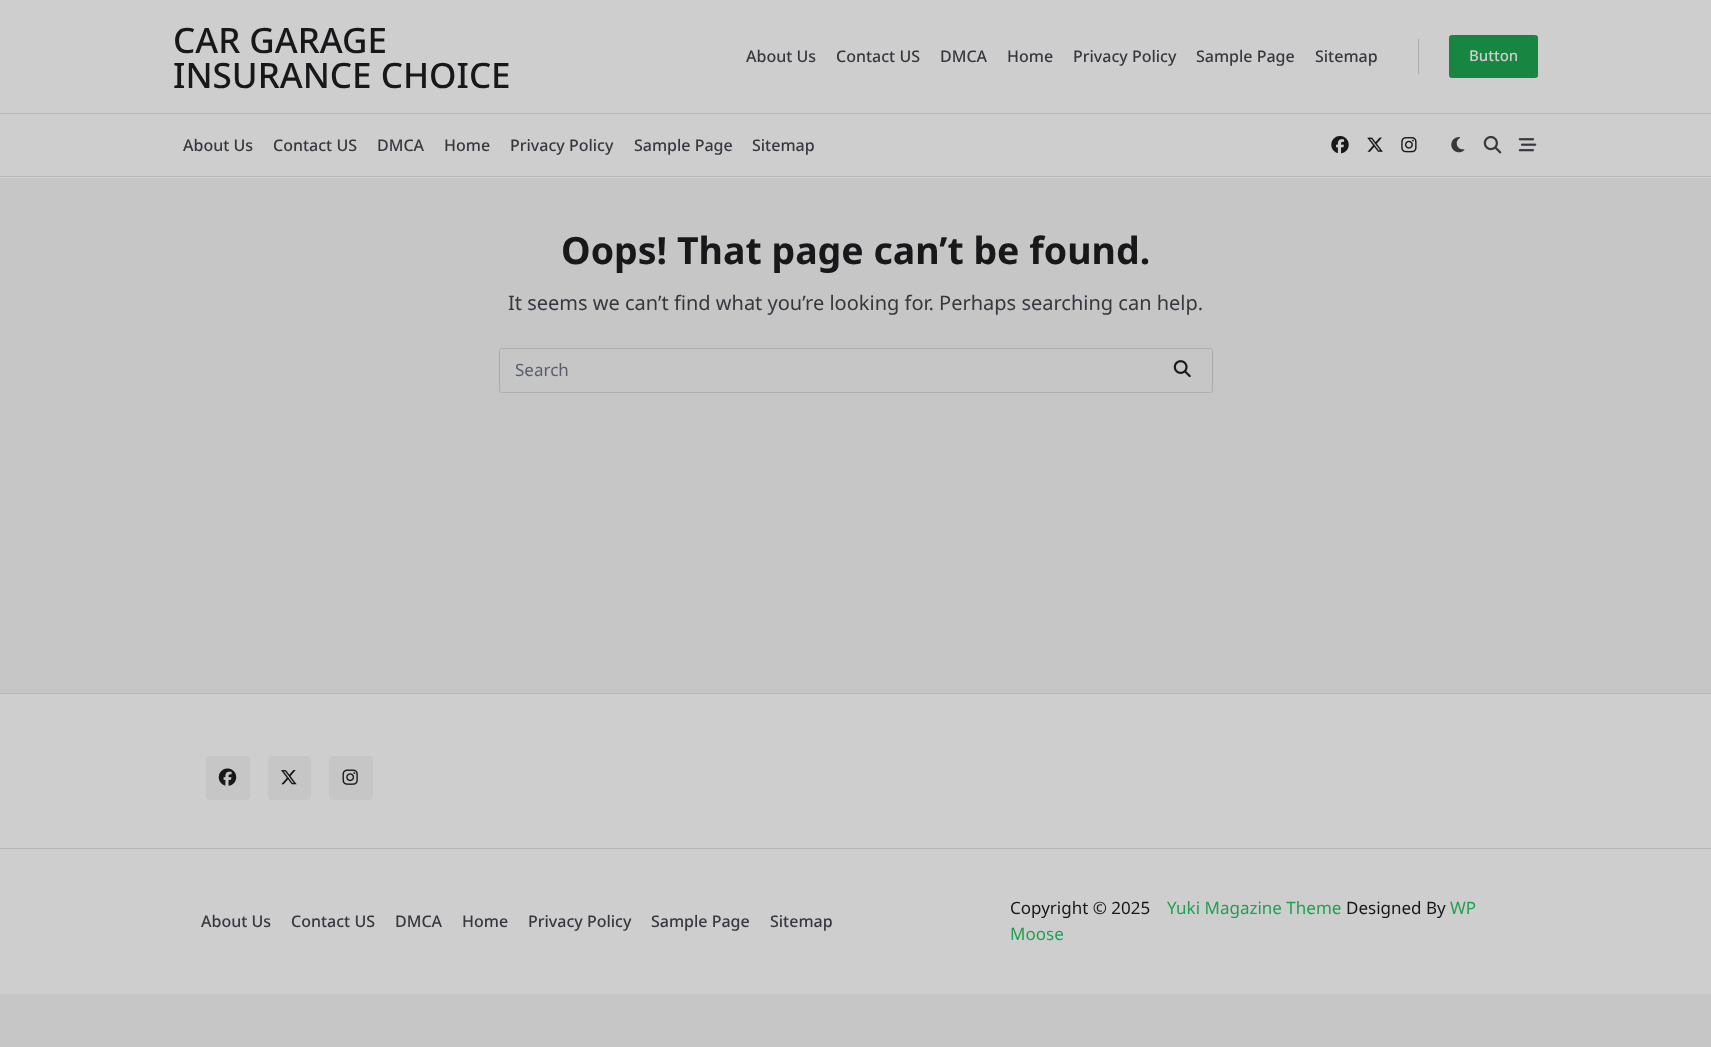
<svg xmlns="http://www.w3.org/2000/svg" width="1711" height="1047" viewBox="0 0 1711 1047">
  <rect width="100%" height="100%" fill="rgb(198,198,199)"/>
  <rect x="0" y="0" width="1711" height="113" fill="rgb(206,206,207)"/>
  <rect x="0" y="113" width="1711" height="1" fill="rgb(185,185,188)"/>
  <g font-family="Noto Sans" font-size="35" font-weight="500" fill="rgb(24,24,27)">
    <text>
      <tspan x="173" y="53">CAR GARAGE</tspan>
      <tspan x="173" y="88">INSURANCE CHOICE</tspan>
    </text>
  </g>
  <g font-family="Noto Sans" font-size="16" font-weight="500" fill="rgb(55,55,61)">
    <text x="746" y="62">About Us</text>
    <text x="836" y="62">Contact US</text>
    <text x="940" y="62">DMCA</text>
    <text x="1007" y="62">Home</text>
    <text x="1073" y="62">Privacy Policy</text>
    <text x="1196" y="62">Sample Page</text>
    <text x="1315" y="62">Sitemap</text>
  </g>
  <rect x="1418" y="39" width="1" height="35" fill="rgb(173,173,176)"/>
  <rect x="1449.5" y="35.5" width="88" height="42" rx="2" fill="rgb(22,134,64)" stroke="rgb(22,134,64)"/>
  <text x="1469" y="61" font-family="Noto Sans" font-size="15" font-weight="500" fill="rgb(206,206,207)">Button</text>
  <rect x="0" y="114" width="1711" height="64" fill="rgb(206,206,207)"/>
  <rect x="0" y="176" width="1711" height="1" fill="rgb(185,185,188)"/>
  <g font-family="Noto Sans" font-size="16" font-weight="500" fill="rgb(55,55,61)">
    <text x="183" y="151">About Us</text>
    <text x="273" y="151">Contact US</text>
    <text x="377" y="151">DMCA</text>
    <text x="444" y="151">Home</text>
    <text x="510" y="151">Privacy Policy</text>
    <text x="634" y="151">Sample Page</text>
    <text x="752" y="151">Sitemap</text>
  </g>
  <image x="1331" y="136" width="18" height="18" href="pic1.png"/>
  <image x="1367" y="137" width="16" height="15" href="pic2.png"/>
  <image x="1401" y="137" width="16" height="16" href="pic3.png"/>
  <image x="1451" y="137" width="14" height="16" href="pic4.png"/>
  <image x="1483" y="135" width="19" height="19" href="pic5.png"/>
  <image x="1518" y="138" width="19" height="14" href="pic6.png"/>
  <text x="561" y="264" font-family="Noto Sans" font-size="37.5" font-weight="bold" fill="rgb(24,24,27)">Oops! That page can’t be found.</text>
  <text x="508" y="310" font-family="Noto Sans" font-size="20" fill="rgb(55,55,61)">It seems we can’t find what you’re looking for. Perhaps searching can help.</text>
  <rect x="499.5" y="348.5" width="713" height="44" rx="2" fill="none" stroke="rgb(173,173,176)"/>
  <text x="515" y="376" font-family="Noto Sans" font-size="17" fill="rgb(90,95,107)">Search</text>
  <image x="1173" y="360" width="18" height="18" href="pic7.png"/>
  <rect x="0" y="694" width="1711" height="154" fill="rgb(206,206,207)"/>
  <rect x="0" y="693" width="1711" height="1" fill="rgb(185,185,188)"/>
  <rect x="206" y="756" width="44" height="44" rx="4" fill="rgb(198,198,199)"/>
  <image x="218" y="768" width="19" height="18" href="pic8.png"/>
  <rect x="268" y="756" width="43" height="44" rx="4" fill="rgb(198,198,199)"/>
  <image x="281" y="770" width="16" height="15" href="pic9.png"/>
  <rect x="329" y="756" width="44" height="44" rx="4" fill="rgb(198,198,199)"/>
  <image x="342" y="769" width="16" height="16" href="pic10.png"/>
  <rect x="0" y="849" width="1711" height="145" fill="rgb(206,206,207)"/>
  <rect x="0" y="848" width="1711" height="1" fill="rgb(185,185,188)"/>
  <g font-family="Noto Sans" font-size="16" font-weight="500" fill="rgb(55,55,61)">
    <text x="201" y="927">About Us</text>
    <text x="291" y="927">Contact US</text>
    <text x="395" y="927">DMCA</text>
    <text x="462" y="927">Home</text>
    <text x="528" y="927">Privacy Policy</text>
    <text x="651" y="927">Sample Page</text>
    <text x="770" y="927">Sitemap</text>
  </g>
  <text x="1010" y="914" font-family="Noto Sans" font-size="17" fill="rgb(24,24,27)">Copyright © 2025</text>
  <text x="1167" y="914" font-family="Noto Sans" font-size="17" fill="rgb(32,161,80)">Yuki Magazine Theme</text>
  <text x="1346" y="914" font-family="Noto Sans" font-size="17" fill="rgb(24,24,27)">Designed By</text>
  <g font-family="Noto Sans" font-size="17" fill="rgb(32,161,80)">
    <text x="1450" y="914">WP</text>
    <text x="1010" y="940">Moose</text>
  </g>
</svg>
